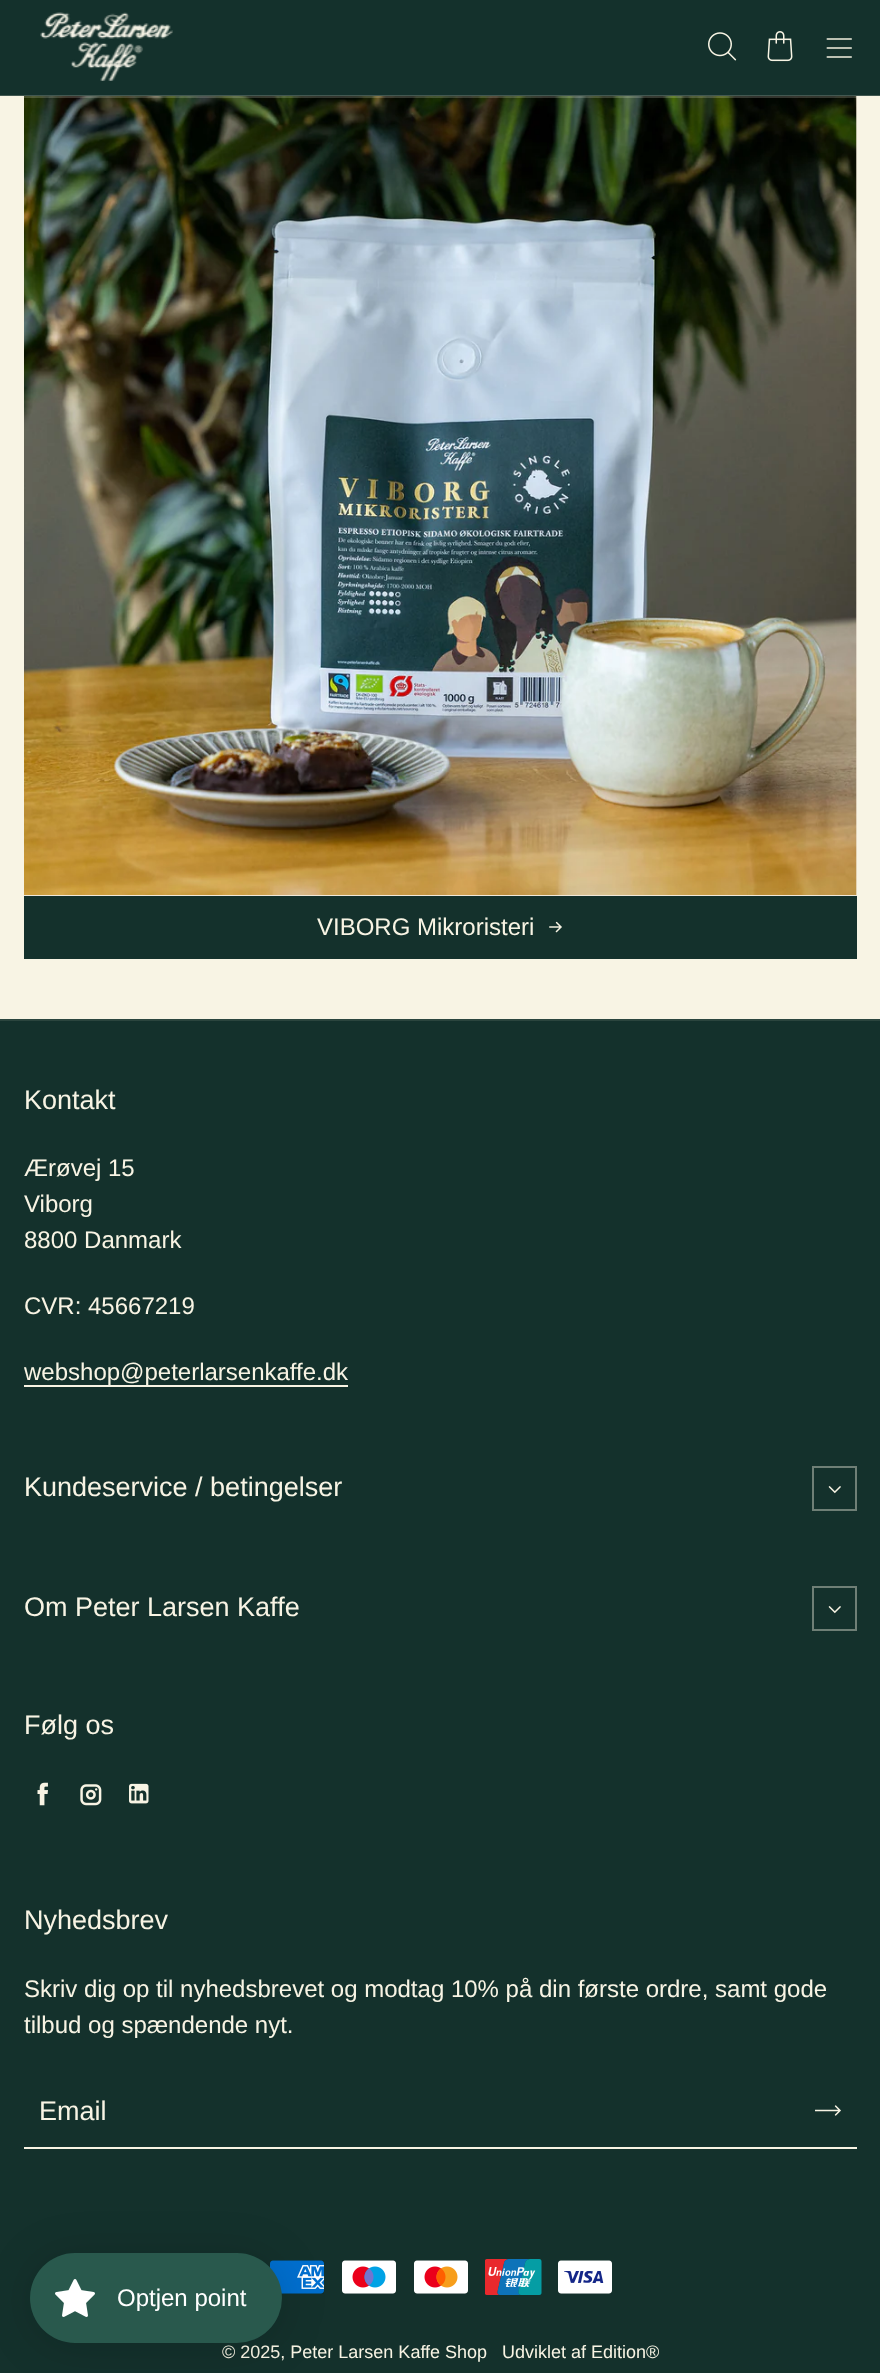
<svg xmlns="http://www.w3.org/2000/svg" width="880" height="2373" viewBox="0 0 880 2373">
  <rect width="100%" height="100%" fill="rgb(248,244,228)"/>
  <rect x="0" y="0" width="880" height="96" fill="rgb(20,49,44)"/>
  <image x="40" y="12" width="133" height="69" href="pic1.png"/>
  <image x="708" y="32" width="29" height="29" href="pic2.png"/>
  <image x="767" y="31" width="26" height="31" href="pic3.png"/>
  <image x="826" y="38" width="26" height="20" href="pic4.png"/>
  <rect x="24" y="96" width="833" height="800" fill="rgb(240,232,217)"/>
  <image x="24" y="96" width="833" height="799" href="pic5.png"/>
  <rect x="0" y="95" width="880" height="3" fill="rgba(248,244,228,0.2)"/>
  <rect x="24" y="896" width="833" height="63" fill="rgb(20,49,44)"/>
  <text x="317" y="935" font-family="Liberation Sans" font-size="24" fill="rgb(248,244,228)">VIBORG Mikroristeri</text>
  <image x="549" y="921" width="13" height="12" href="pic6.png"/>
  <rect x="0" y="1021" width="880" height="1352" fill="rgb(20,49,44)"/>
  <rect x="0" y="1019" width="880" height="2" fill="rgb(43,69,62)"/>
  <text x="24" y="1109" font-family="Liberation Sans" font-size="27" fill="rgb(248,244,228)">Kontakt</text>
  <g font-family="Liberation Sans" font-size="24" fill="rgb(248,244,228)">
    <text>
      <tspan x="24" y="1176">Ærøvej 15</tspan>
      <tspan x="24" y="1212">Viborg</tspan>
      <tspan x="24" y="1248">8800 Danmark</tspan>
    </text>
    <text x="24" y="1314">CVR: 45667219</text>
    <text x="24" y="1380">webshop@peterlarsenkaffe.dk</text>
  </g>
  <rect x="24" y="1385" width="324" height="2" fill="rgb(248,244,228)"/>
  <text x="24" y="1496" font-family="Liberation Sans" font-size="27" fill="rgb(248,244,228)">Kundeservice / betingelser</text>
  <rect x="813" y="1467" width="43" height="43" fill="none" stroke="rgb(111,127,118)" stroke-width="2"/>
  <image x="828" y="1486" width="13" height="8" href="pic7.png"/>
  <text x="24" y="1616" font-family="Liberation Sans" font-size="27" fill="rgb(248,244,228)">Om Peter Larsen Kaffe</text>
  <rect x="813" y="1587" width="43" height="43" fill="none" stroke="rgb(111,127,118)" stroke-width="2"/>
  <image x="828" y="1606" width="13" height="8" href="pic7.png"/>
  <text x="24" y="1734" font-family="Liberation Sans" font-size="27" fill="rgb(248,244,228)">Følg os</text>
  <image x="37" y="1782" width="11" height="24" href="pic8.png"/>
  <image x="80" y="1784" width="22" height="22" href="pic9.png"/>
  <image x="129" y="1783" width="20" height="21" href="pic10.png"/>
  <text x="24" y="1929" font-family="Liberation Sans" font-size="27" fill="rgb(248,244,228)">Nyhedsbrev</text>
  <g font-family="Liberation Sans" font-size="24" fill="rgb(248,244,228)">
    <text>
      <tspan x="24" y="1997">Skriv dig op til nyhedsbrevet og modtag 10% på din første ordre, samt gode</tspan>
      <tspan x="24" y="2033">tilbud og spændende nyt.</tspan>
    </text>
  </g>
  <text x="39" y="2120" font-family="Liberation Sans" font-size="27" fill="rgb(248,244,228)">Email</text>
  <image x="815" y="2105" width="26" height="11" href="pic11.png"/>
  <rect x="24" y="2147" width="833" height="2" fill="rgb(248,244,228)"/>
  <image x="270" y="2260" width="54" height="34" href="pic12.png"/>
  <image x="342" y="2260" width="54" height="34" href="pic13.png"/>
  <image x="414" y="2260" width="54" height="34" href="pic14.png"/>
  <image x="485" y="2259" width="57" height="36" href="pic15.png"/>
  <image x="558" y="2260" width="54" height="34" href="pic16.png"/>
  <g font-family="Liberation Sans" font-size="18" fill="rgb(248,244,228)">
    <text x="222" y="2358">© 2025, Peter Larsen Kaffe Shop</text>
    <text x="502" y="2358">Udviklet af Edition®</text>
  </g>
  <rect x="30" y="2256" width="252" height="90" rx="45" fill="rgba(0,0,0,0.15)" filter="blur(22.5px)"/>
  <rect x="30" y="2253" width="252" height="90" rx="45" fill="rgb(41,89,77)"/>
  <image x="55" y="2279" width="40" height="38" href="pic17.png"/>
  <text x="117" y="2306" font-family="Liberation Sans" font-size="24" fill="rgb(255,255,255)">Optjen point</text>
</svg>
